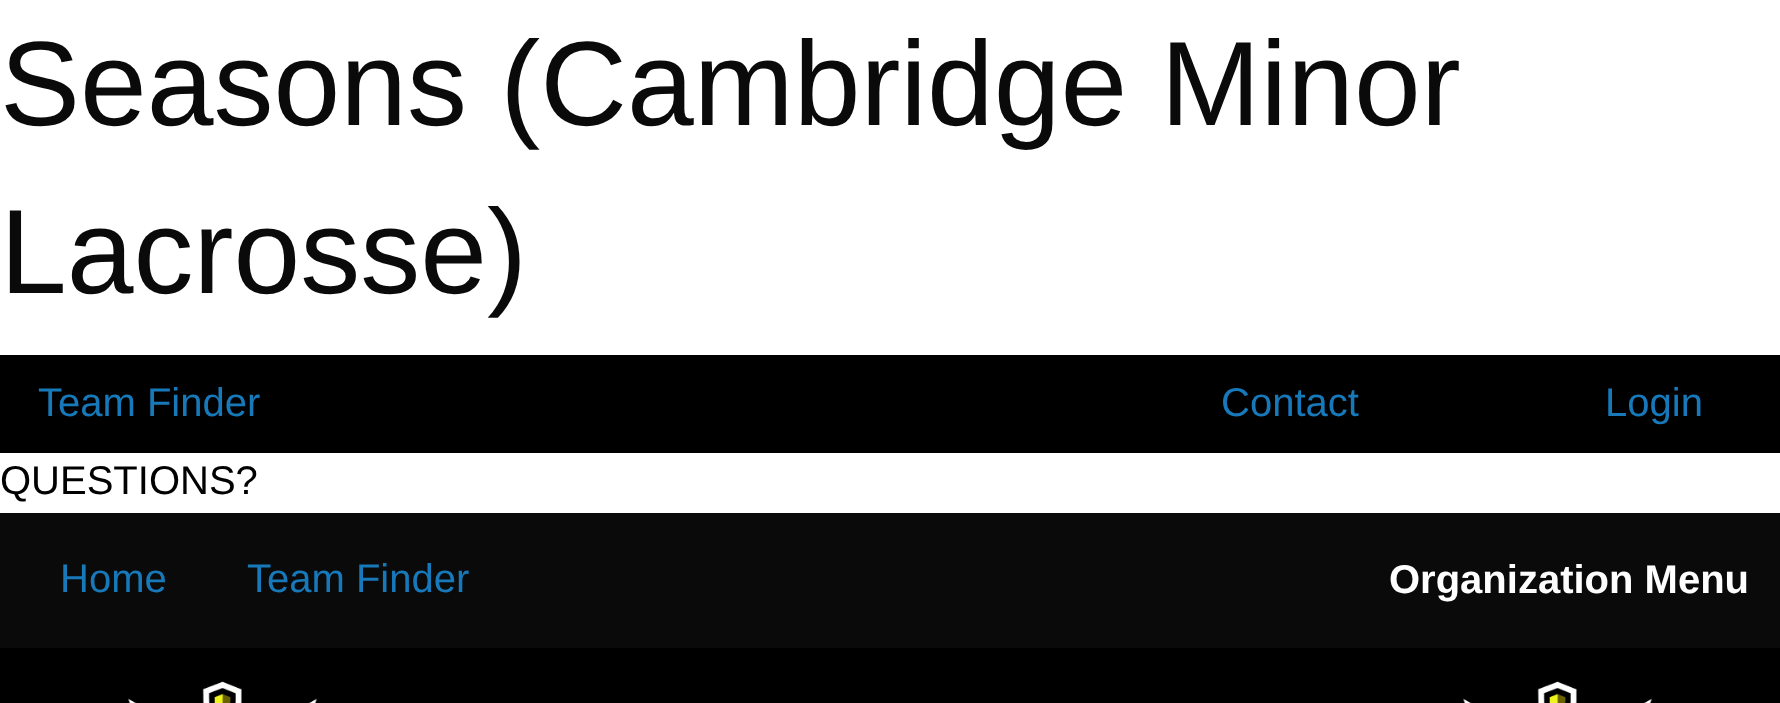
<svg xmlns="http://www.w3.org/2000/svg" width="1780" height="703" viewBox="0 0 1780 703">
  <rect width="100%" height="100%" fill="rgb(255,255,255)"/>
  <g font-family="Liberation Sans" font-size="120" fill="rgb(10,10,10)">
    <text>
      <tspan x="0" y="125">Seasons (Cambridge Minor</tspan>
      <tspan x="0" y="293">Lacrosse)</tspan>
    </text>
  </g>
  <rect x="0" y="355" width="1780" height="348" fill="rgb(0,0,0)"/>
  <g font-family="Liberation Sans" font-size="40" fill="rgb(23,121,186)">
    <text x="38" y="416">Team Finder</text>
    <text x="1221" y="416">Contact</text>
    <text x="1605" y="416">Login</text>
  </g>
  <rect x="0" y="453" width="1780" height="60" fill="rgb(255,255,255)"/>
  <text x="0" y="494" font-family="Liberation Sans" font-size="40" fill="rgb(0,0,0)">QUESTIONS?</text>
  <rect x="0" y="513" width="1780" height="135" fill="rgb(10,10,10)"/>
  <g font-family="Liberation Sans" font-size="40" fill="rgb(23,121,186)">
    <text x="60" y="592">Home</text>
    <text x="247" y="592">Team Finder</text>
  </g>
  <text x="1389" y="593" font-family="Liberation Sans" font-size="40" font-weight="bold" fill="rgb(254,254,254)">Organization Menu</text>
  <image x="127" y="681" width="191" height="22" href="pic1.png"/>
  <image x="1462" y="681" width="191" height="22" href="pic1.png"/>
</svg>
